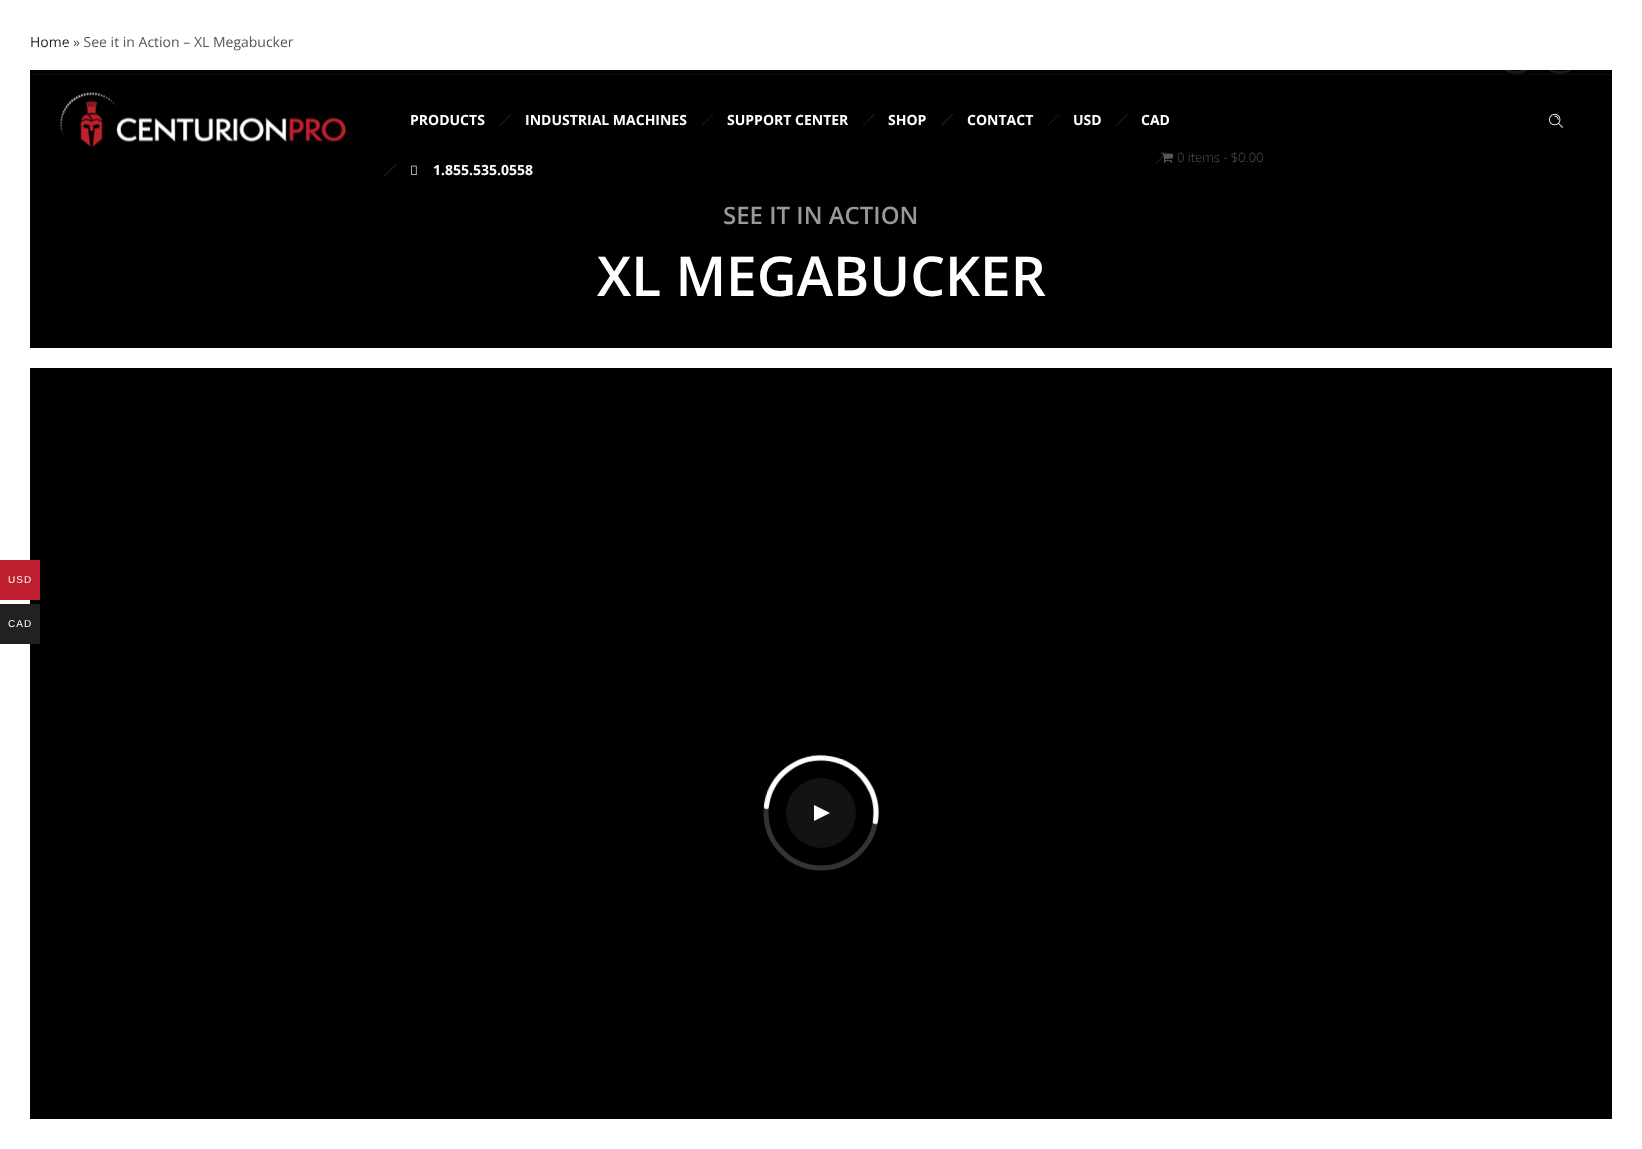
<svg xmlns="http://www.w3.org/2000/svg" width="1642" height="1149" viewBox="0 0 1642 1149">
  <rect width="100%" height="100%" fill="rgb(255,255,255)"/>
  <text x="30" y="47" font-family="Open Sans" font-size="14" fill="rgb(36,36,36)">Home</text>
  <text x="73" y="47" font-family="Open Sans" font-size="14" fill="rgb(86,86,86)">» See it in Action – XL Megabucker</text>
  <rect x="30" y="70" width="1582" height="278" fill="rgb(0,0,0)"/>
  <text x="723" y="224" font-family="Open Sans" font-size="24" font-weight="600" fill="rgb(153,153,153)">SEE IT IN ACTION</text>
  <text x="597" y="296" font-family="Open Sans" font-size="55" font-weight="600" fill="rgb(255,255,255)">XL MEGABUCKER</text>
  <image x="30" y="368" width="1582" height="751" href="pic1.png"/>
  <circle cx="821" cy="813" r="35" fill="rgb(19,19,19)"/>
  <path d="M814 821V805L830 813Z" fill="rgb(255,255,255)"/>
  <path d="M30 74.5H1612" fill="none" stroke="rgb(26,26,26)" stroke-dasharray="1 1"/>
  <image x="63" y="45" width="6" height="3" href="pic2.png"/>
  <circle cx="1516" cy="52" r="20.5" fill="none" stroke="rgba(255,255,255,0.1)" stroke-width="3"/>
  <circle cx="1560" cy="52" r="20.5" fill="none" stroke="rgba(255,255,255,0.1)" stroke-width="3"/>
  <image x="60" y="92" width="286" height="56" href="pic3.png"/>
  <text x="410" y="125" font-family="Open Sans" font-size="14" font-weight="bold" fill="rgb(255,255,255)">PRODUCTS</text>
  <path d="M511 113.5L511.5 114.5L500 126.5L499 125.5Z" fill="rgb(26,26,26)"/>
  <text x="525" y="125" font-family="Open Sans" font-size="14" font-weight="bold" fill="rgb(255,255,255)">INDUSTRIAL MACHINES</text>
  <path d="M713 113.5L713.5 114.5L701.5 126.5L701 125.5Z" fill="rgb(26,26,26)"/>
  <text x="727" y="125" font-family="Open Sans" font-size="14" font-weight="bold" fill="rgb(255,255,255)">SUPPORT CENTER</text>
  <path d="M874 113.5L875 114.5L863 126.5L862.5 125.5Z" fill="rgb(26,26,26)"/>
  <text x="888" y="125" font-family="Open Sans" font-size="14" font-weight="bold" fill="rgb(255,255,255)">SHOP</text>
  <path d="M952.5 113.5L953.5 114.5L941.5 126.5L940.5 125.5Z" fill="rgb(26,26,26)"/>
  <text x="967" y="125" font-family="Open Sans" font-size="14" font-weight="bold" fill="rgb(255,255,255)">CONTACT</text>
  <path d="M1059 113.5L1059.5 114.5L1047.5 126.5L1047 125.5Z" fill="rgb(26,26,26)"/>
  <text x="1073" y="125" font-family="Open Sans" font-size="14" font-weight="bold" fill="rgb(255,255,255)">USD</text>
  <path d="M1127.5 113.5L1128 114.5L1116.5 126.5L1115.5 125.5Z" fill="rgb(26,26,26)"/>
  <text x="1141" y="125" font-family="Open Sans" font-size="14" font-weight="bold" fill="rgb(255,255,255)">CAD</text>
  <path d="M1167.5 151L1168 152L1156.5 164L1155.5 163Z" fill="rgb(26,26,26)"/>
  <image x="1161" y="152" width="13" height="11" href="pic4.png"/>
  <text x="1177" y="162" font-family="Open Sans" font-size="13" font-weight="300" fill="rgb(86,86,86)">0 items - $0.00</text>
  <path d="M396 163.5L397 164.5L385 176.5L384 175.5Z" fill="rgb(26,26,26)"/>
  <image x="411" y="165" width="6" height="10" href="pic5.png"/>
  <text x="433" y="175" font-family="Open Sans" font-size="14" font-weight="bold" fill="rgb(255,255,255)">1.855.535.0558</text>
  <image x="1549" y="113" width="14" height="15" href="pic6.png"/>
  <rect x="0" y="560" width="40" height="40" fill="rgb(190,30,45)"/>
  <text x="8" y="583" font-family="Liberation Sans" font-size="10" letter-spacing="1" fill="rgb(255,255,255)">USD</text>
  <rect x="0" y="604" width="40" height="40" fill="rgb(33,33,33)"/>
  <text x="8" y="627" font-family="Liberation Sans" font-size="10" letter-spacing="1" fill="rgb(255,255,255)">CAD</text>
</svg>
